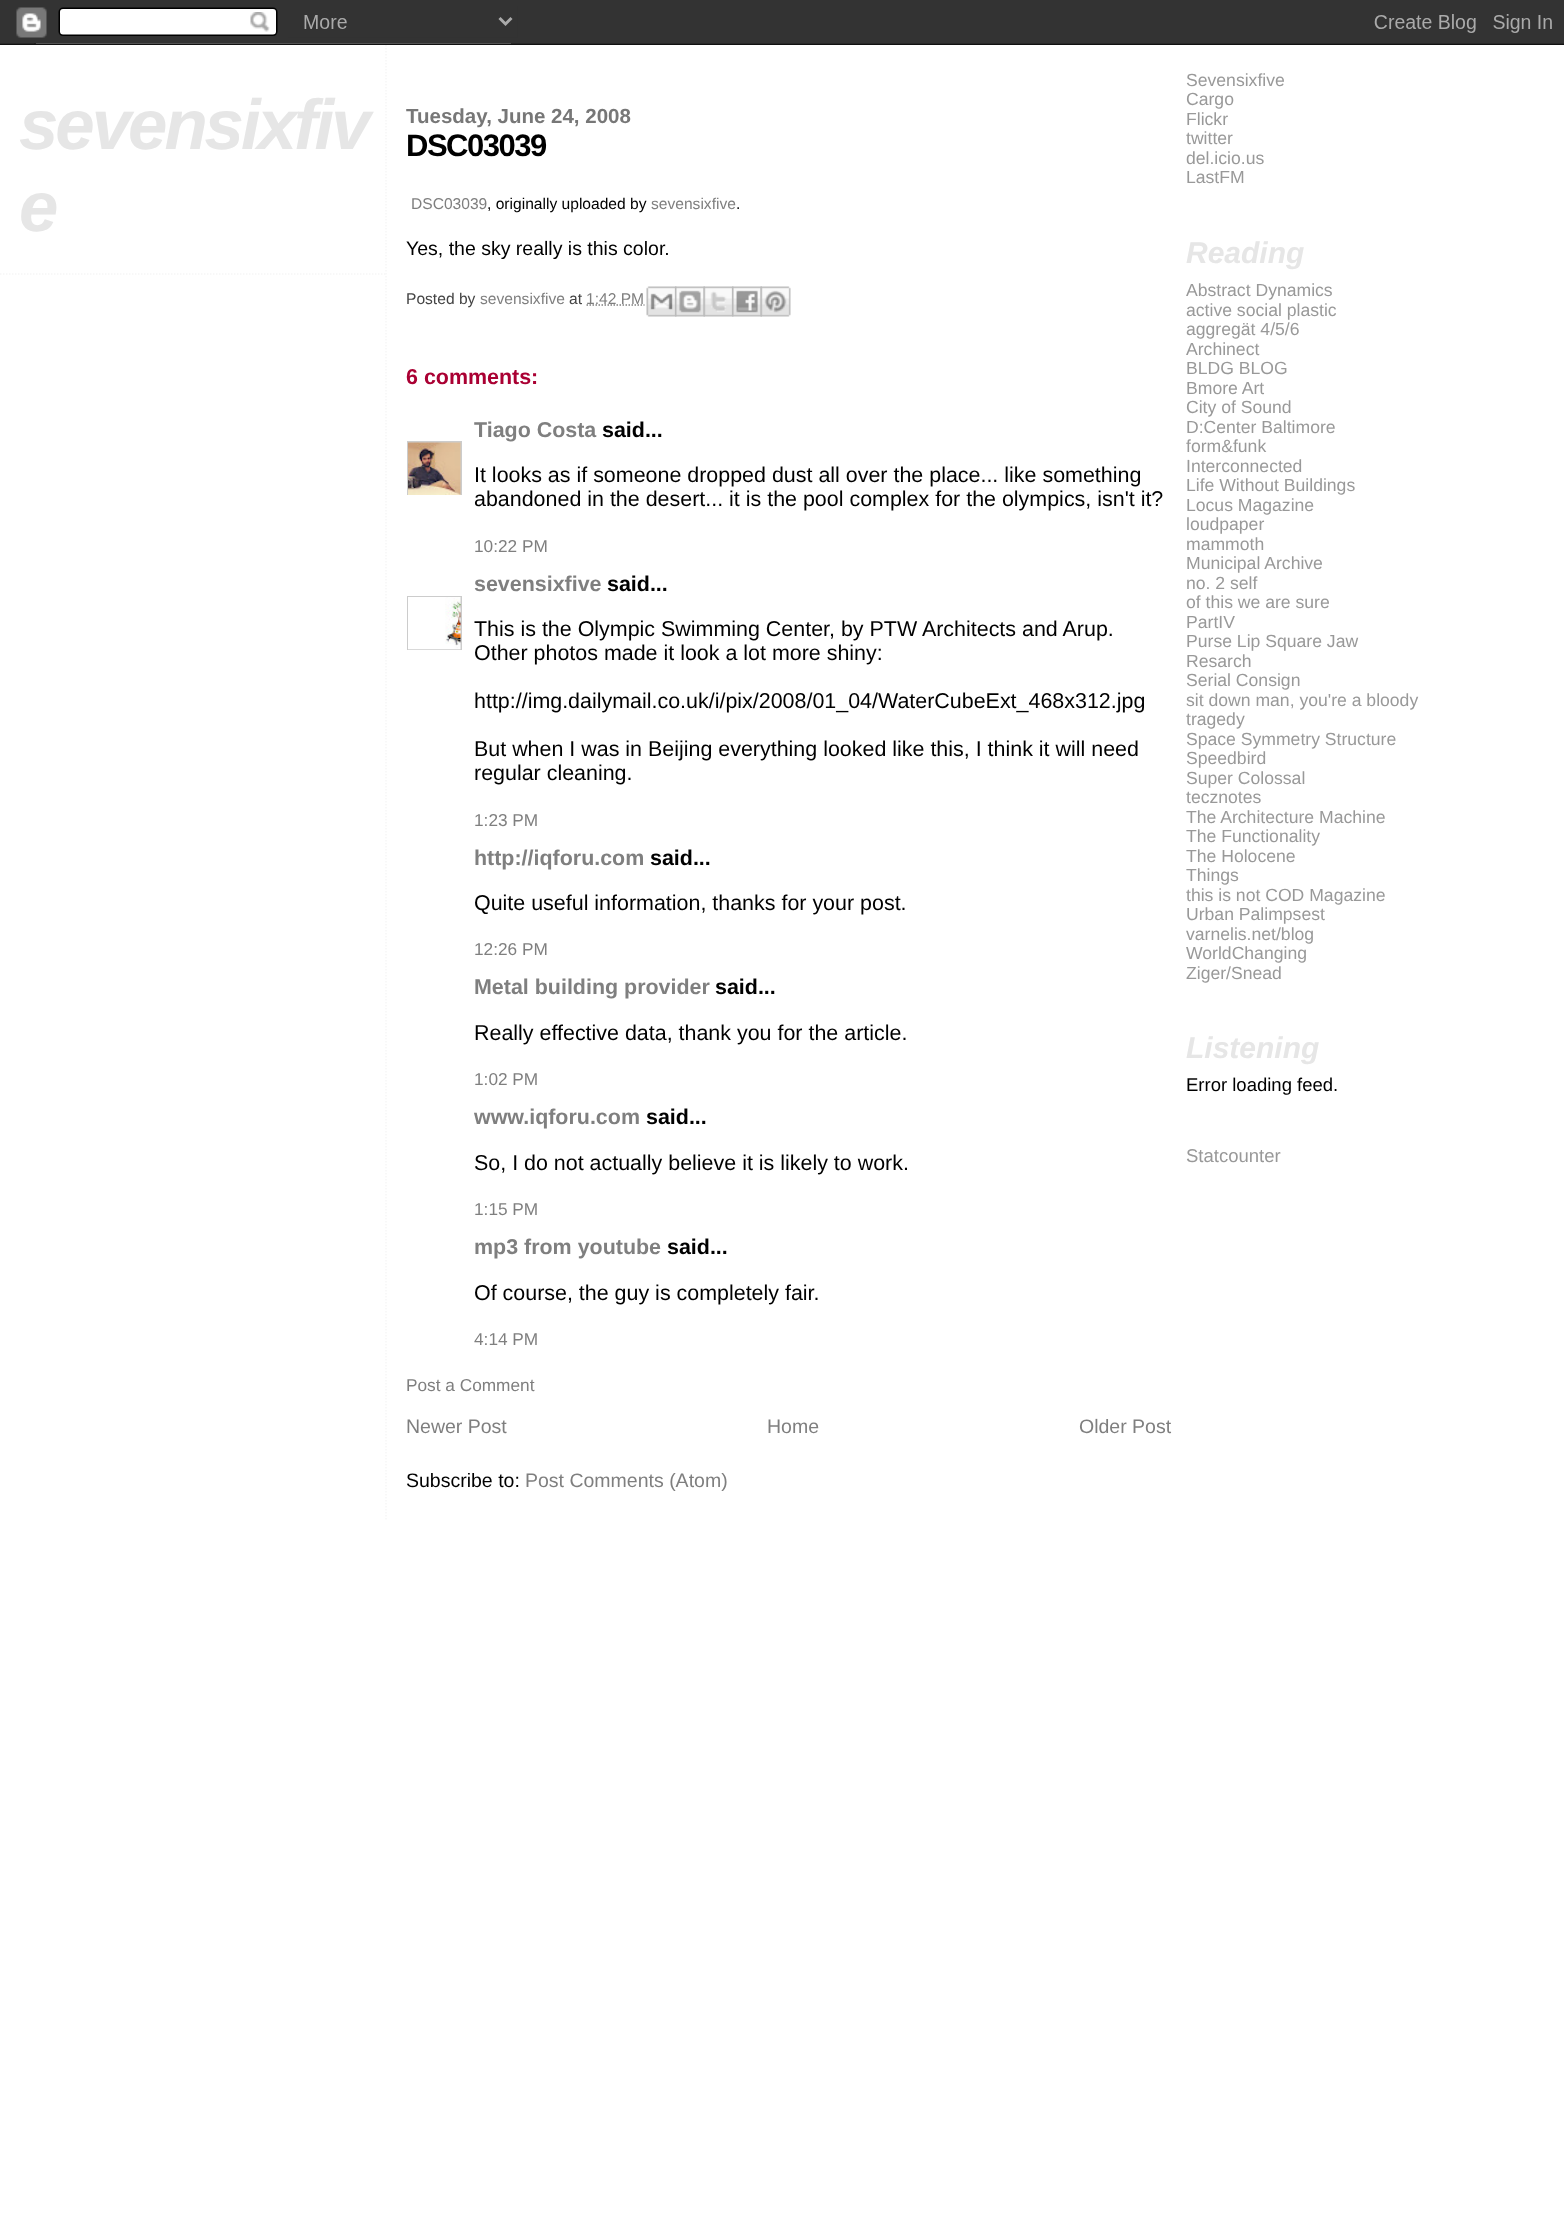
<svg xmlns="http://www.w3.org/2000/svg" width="1564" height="2228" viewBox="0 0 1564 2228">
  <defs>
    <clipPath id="clip1"><rect x="407" y="441" width="55" height="54"/></clipPath>
    <clipPath id="clip2"><rect x="407" y="596" width="55" height="54"/></clipPath>
  </defs>
  <rect width="100%" height="100%" fill="rgb(255,255,255)"/>
  <image x="0" y="0" width="1564" height="45" href="pic1.png"/>
  <path d="M0 274H385.5" fill="none" stroke="rgb(246,246,246)" stroke-width="1.5" stroke-dasharray="1.5 1.5"/>
  <g font-family="Liberation Sans" font-size="70.75" font-weight="bold" font-style="italic" letter-spacing="-3" fill="rgb(230,230,230)">
    <text>
      <tspan x="19" y="149">sevensixfiv</tspan>
      <tspan x="19" y="231">e</tspan>
    </text>
  </g>
  <path d="M386 45V1521" fill="none" stroke="rgb(246,246,246)" stroke-width="1.5" stroke-dasharray="1.5 1.5"/>
  <text x="406" y="123" font-family="Liberation Sans" font-size="20.5" font-weight="bold" fill="rgb(119,119,119)">Tuesday, June 24, 2008</text>
  <text x="406" y="156" font-family="Liberation Sans" font-size="31" font-weight="bold" letter-spacing="-1.5" fill="rgb(0,0,0)">DSC03039</text>
  <text x="411" y="209" font-family="Liberation Sans" font-size="15.6" fill="rgb(127,127,127)">DSC03039</text>
  <text x="487" y="209" font-family="Liberation Sans" font-size="15.6" fill="rgb(0,0,0)">, originally uploaded by</text>
  <text x="651" y="209" font-family="Liberation Sans" font-size="15.6" fill="rgb(127,127,127)">sevensixfive</text>
  <text x="736" y="209" font-family="Liberation Sans" font-size="15.6" fill="rgb(0,0,0)">.</text>
  <text x="406" y="255" font-family="Liberation Sans" font-size="19.5" fill="rgb(0,0,0)">Yes, the sky really is this color.</text>
  <text x="406" y="304" font-family="Liberation Sans" font-size="15.6" fill="rgb(68,68,68)">Posted by</text>
  <text x="480" y="304" font-family="Liberation Sans" font-size="15.6" fill="rgb(127,127,127)">sevensixfive</text>
  <text x="569" y="304" font-family="Liberation Sans" font-size="15.6" fill="rgb(68,68,68)">at</text>
  <text x="586" y="304" font-family="Liberation Sans" font-size="15.6" fill="rgb(127,127,127)">1:42 PM</text>
  <path d="M586.5 305H644.5" fill="none" stroke="rgb(127,127,127)" stroke-width="1.5" stroke-dasharray="1.5 1.5"/>
  <image x="646" y="286" width="31" height="31" href="pic2.png"/>
  <image x="675" y="286" width="30" height="31" href="pic3.png"/>
  <image x="703" y="286" width="31" height="31" href="pic4.png"/>
  <image x="732" y="286" width="30" height="31" href="pic5.png"/>
  <image x="760" y="286" width="31" height="31" href="pic6.png"/>
  <text x="406" y="384" font-family="Liberation Sans" font-size="21.45" font-weight="bold" fill="rgb(170,0,51)">6 comments:</text>
  <text x="474" y="437" font-family="Liberation Sans" font-size="21.45" font-weight="bold" fill="rgb(127,127,127)">Tiago Costa</text>
  <text x="602" y="437" font-family="Liberation Sans" font-size="21.45" font-weight="bold" fill="rgb(0,0,0)">said...</text>
  <g clip-path="url(#clip1)">
    <rect x="408" y="442" width="53" height="54" fill="none" stroke="rgb(204,204,204)" stroke-width="2"/>
  </g>
  <image x="408" y="442" width="53" height="53" href="pic7.png"/>
  <g font-family="Liberation Sans" font-size="21.45" fill="rgb(0,0,0)">
    <text>
      <tspan x="474" y="482">It looks as if someone dropped dust all over the place... like something</tspan>
      <tspan x="474" y="506">abandoned in the desert... it is the pool complex for the olympics, isn't it?</tspan>
    </text>
  </g>
  <text x="474" y="552" font-family="Liberation Sans" font-size="17.25" fill="rgb(127,127,127)">10:22 PM</text>
  <text x="474" y="591" font-family="Liberation Sans" font-size="21.45" font-weight="bold" fill="rgb(127,127,127)">sevensixfive</text>
  <text x="607" y="591" font-family="Liberation Sans" font-size="21.45" font-weight="bold" fill="rgb(0,0,0)">said...</text>
  <g clip-path="url(#clip2)">
    <rect x="408" y="597" width="53" height="53" fill="none" stroke="rgb(204,204,204)" stroke-width="2"/>
  </g>
  <image x="408" y="597" width="53" height="53" href="pic8.png"/>
  <g font-family="Liberation Sans" font-size="21.45" fill="rgb(0,0,0)">
    <text>
      <tspan x="474" y="636">This is the Olympic Swimming Center, by PTW Architects and Arup.</tspan>
      <tspan x="474" y="660">Other photos made it look a lot more shiny:</tspan>
    </text>
    <text x="474" y="708">http://img.dailymail.co.uk/i/pix/2008/01_04/WaterCubeExt_468x312.jpg</text>
    <text>
      <tspan x="474" y="756">But when I was in Beijing everything looked like this, I think it will need</tspan>
      <tspan x="474" y="780">regular cleaning.</tspan>
    </text>
  </g>
  <text x="474" y="826" font-family="Liberation Sans" font-size="17.25" fill="rgb(127,127,127)">1:23 PM</text>
  <text x="474" y="865" font-family="Liberation Sans" font-size="21.45" font-weight="bold" fill="rgb(127,127,127)">http://iqforu.com</text>
  <text x="650" y="865" font-family="Liberation Sans" font-size="21.45" font-weight="bold" fill="rgb(0,0,0)">said...</text>
  <text x="474" y="910" font-family="Liberation Sans" font-size="21.45" fill="rgb(0,0,0)">Quite useful information, thanks for your post.</text>
  <text x="474" y="955" font-family="Liberation Sans" font-size="17.25" fill="rgb(127,127,127)">12:26 PM</text>
  <text x="474" y="994" font-family="Liberation Sans" font-size="21.45" font-weight="bold" fill="rgb(127,127,127)">Metal building provider</text>
  <text x="715" y="994" font-family="Liberation Sans" font-size="21.45" font-weight="bold" fill="rgb(0,0,0)">said...</text>
  <text x="474" y="1040" font-family="Liberation Sans" font-size="21.45" fill="rgb(0,0,0)">Really effective data, thank you for the article.</text>
  <text x="474" y="1085" font-family="Liberation Sans" font-size="17.25" fill="rgb(127,127,127)">1:02 PM</text>
  <text x="474" y="1124" font-family="Liberation Sans" font-size="21.45" font-weight="bold" fill="rgb(127,127,127)">www.iqforu.com</text>
  <text x="646" y="1124" font-family="Liberation Sans" font-size="21.45" font-weight="bold" fill="rgb(0,0,0)">said...</text>
  <text x="474" y="1170" font-family="Liberation Sans" font-size="21.45" fill="rgb(0,0,0)">So, I do not actually believe it is likely to work.</text>
  <text x="474" y="1215" font-family="Liberation Sans" font-size="17.25" fill="rgb(127,127,127)">1:15 PM</text>
  <text x="474" y="1254" font-family="Liberation Sans" font-size="21.45" font-weight="bold" fill="rgb(127,127,127)">mp3 from youtube</text>
  <text x="667" y="1254" font-family="Liberation Sans" font-size="21.45" font-weight="bold" fill="rgb(0,0,0)">said...</text>
  <text x="474" y="1300" font-family="Liberation Sans" font-size="21.45" fill="rgb(0,0,0)">Of course, the guy is completely fair.</text>
  <g font-family="Liberation Sans" font-size="17.25" fill="rgb(127,127,127)">
    <text x="474" y="1345">4:14 PM</text>
    <text x="406" y="1391">Post a Comment</text>
  </g>
  <g font-family="Liberation Sans" font-size="19.5" fill="rgb(127,127,127)">
    <text x="406" y="1433">Newer Post</text>
    <text x="767" y="1433">Home</text>
    <text x="1079" y="1433">Older Post</text>
  </g>
  <text x="406" y="1487" font-family="Liberation Sans" font-size="19.5" fill="rgb(0,0,0)">Subscribe to:</text>
  <text x="525" y="1487" font-family="Liberation Sans" font-size="19.5" fill="rgb(127,127,127)">Post Comments (Atom)</text>
  <g font-family="Liberation Sans" font-size="17.6" fill="rgb(153,153,153)">
    <text>
      <tspan x="1186" y="86">Sevensixfive</tspan>
      <tspan x="1186" y="105">Cargo</tspan>
      <tspan x="1186" y="125">Flickr</tspan>
      <tspan x="1186" y="144">twitter</tspan>
      <tspan x="1186" y="164">del.icio.us</tspan>
      <tspan x="1186" y="183">LastFM</tspan>
    </text>
  </g>
  <text x="1186" y="263" font-family="Liberation Sans" font-size="30" font-weight="bold" font-style="italic" fill="rgb(230,230,230)">Reading</text>
  <g font-family="Liberation Sans" font-size="17.6" fill="rgb(153,153,153)">
    <text>
      <tspan x="1186" y="296">Abstract Dynamics</tspan>
      <tspan x="1186" y="316">active social plastic</tspan>
      <tspan x="1186" y="335">aggregät 4/5/6</tspan>
      <tspan x="1186" y="355">Archinect</tspan>
      <tspan x="1186" y="374">BLDG BLOG</tspan>
      <tspan x="1186" y="394">Bmore Art</tspan>
      <tspan x="1186" y="413">City of Sound</tspan>
      <tspan x="1186" y="433">D:Center Baltimore</tspan>
      <tspan x="1186" y="452">form&amp;funk</tspan>
      <tspan x="1186" y="472">Interconnected</tspan>
      <tspan x="1186" y="491">Life Without Buildings</tspan>
      <tspan x="1186" y="511">Locus Magazine</tspan>
      <tspan x="1186" y="530">loudpaper</tspan>
      <tspan x="1186" y="550">mammoth</tspan>
      <tspan x="1186" y="569">Municipal Archive</tspan>
      <tspan x="1186" y="589">no. 2 self</tspan>
      <tspan x="1186" y="608">of this we are sure</tspan>
      <tspan x="1186" y="628">PartIV</tspan>
      <tspan x="1186" y="647">Purse Lip Square Jaw</tspan>
      <tspan x="1186" y="667">Resarch</tspan>
      <tspan x="1186" y="686">Serial Consign</tspan>
      <tspan x="1186" y="706">sit down man, you're a bloody</tspan>
      <tspan x="1186" y="725">tragedy</tspan>
      <tspan x="1186" y="745">Space Symmetry Structure</tspan>
      <tspan x="1186" y="764">Speedbird</tspan>
      <tspan x="1186" y="784">Super Colossal</tspan>
      <tspan x="1186" y="803">tecznotes</tspan>
      <tspan x="1186" y="823">The Architecture Machine</tspan>
      <tspan x="1186" y="842">The Functionality</tspan>
      <tspan x="1186" y="862">The Holocene</tspan>
      <tspan x="1186" y="881">Things</tspan>
      <tspan x="1186" y="901">this is not COD Magazine</tspan>
      <tspan x="1186" y="920">Urban Palimpsest</tspan>
      <tspan x="1186" y="940">varnelis.net/blog</tspan>
      <tspan x="1186" y="959">WorldChanging</tspan>
      <tspan x="1186" y="979">Ziger/Snead</tspan>
    </text>
  </g>
  <text x="1186" y="1058" font-family="Liberation Sans" font-size="30" font-weight="bold" font-style="italic" fill="rgb(230,230,230)">Listening</text>
  <text x="1186" y="1091" font-family="Liberation Sans" font-size="18.5" fill="rgb(0,0,0)">Error loading feed.</text>
  <text x="1186" y="1162" font-family="Liberation Sans" font-size="18.5" fill="rgb(153,153,153)">Statcounter</text>
</svg>
